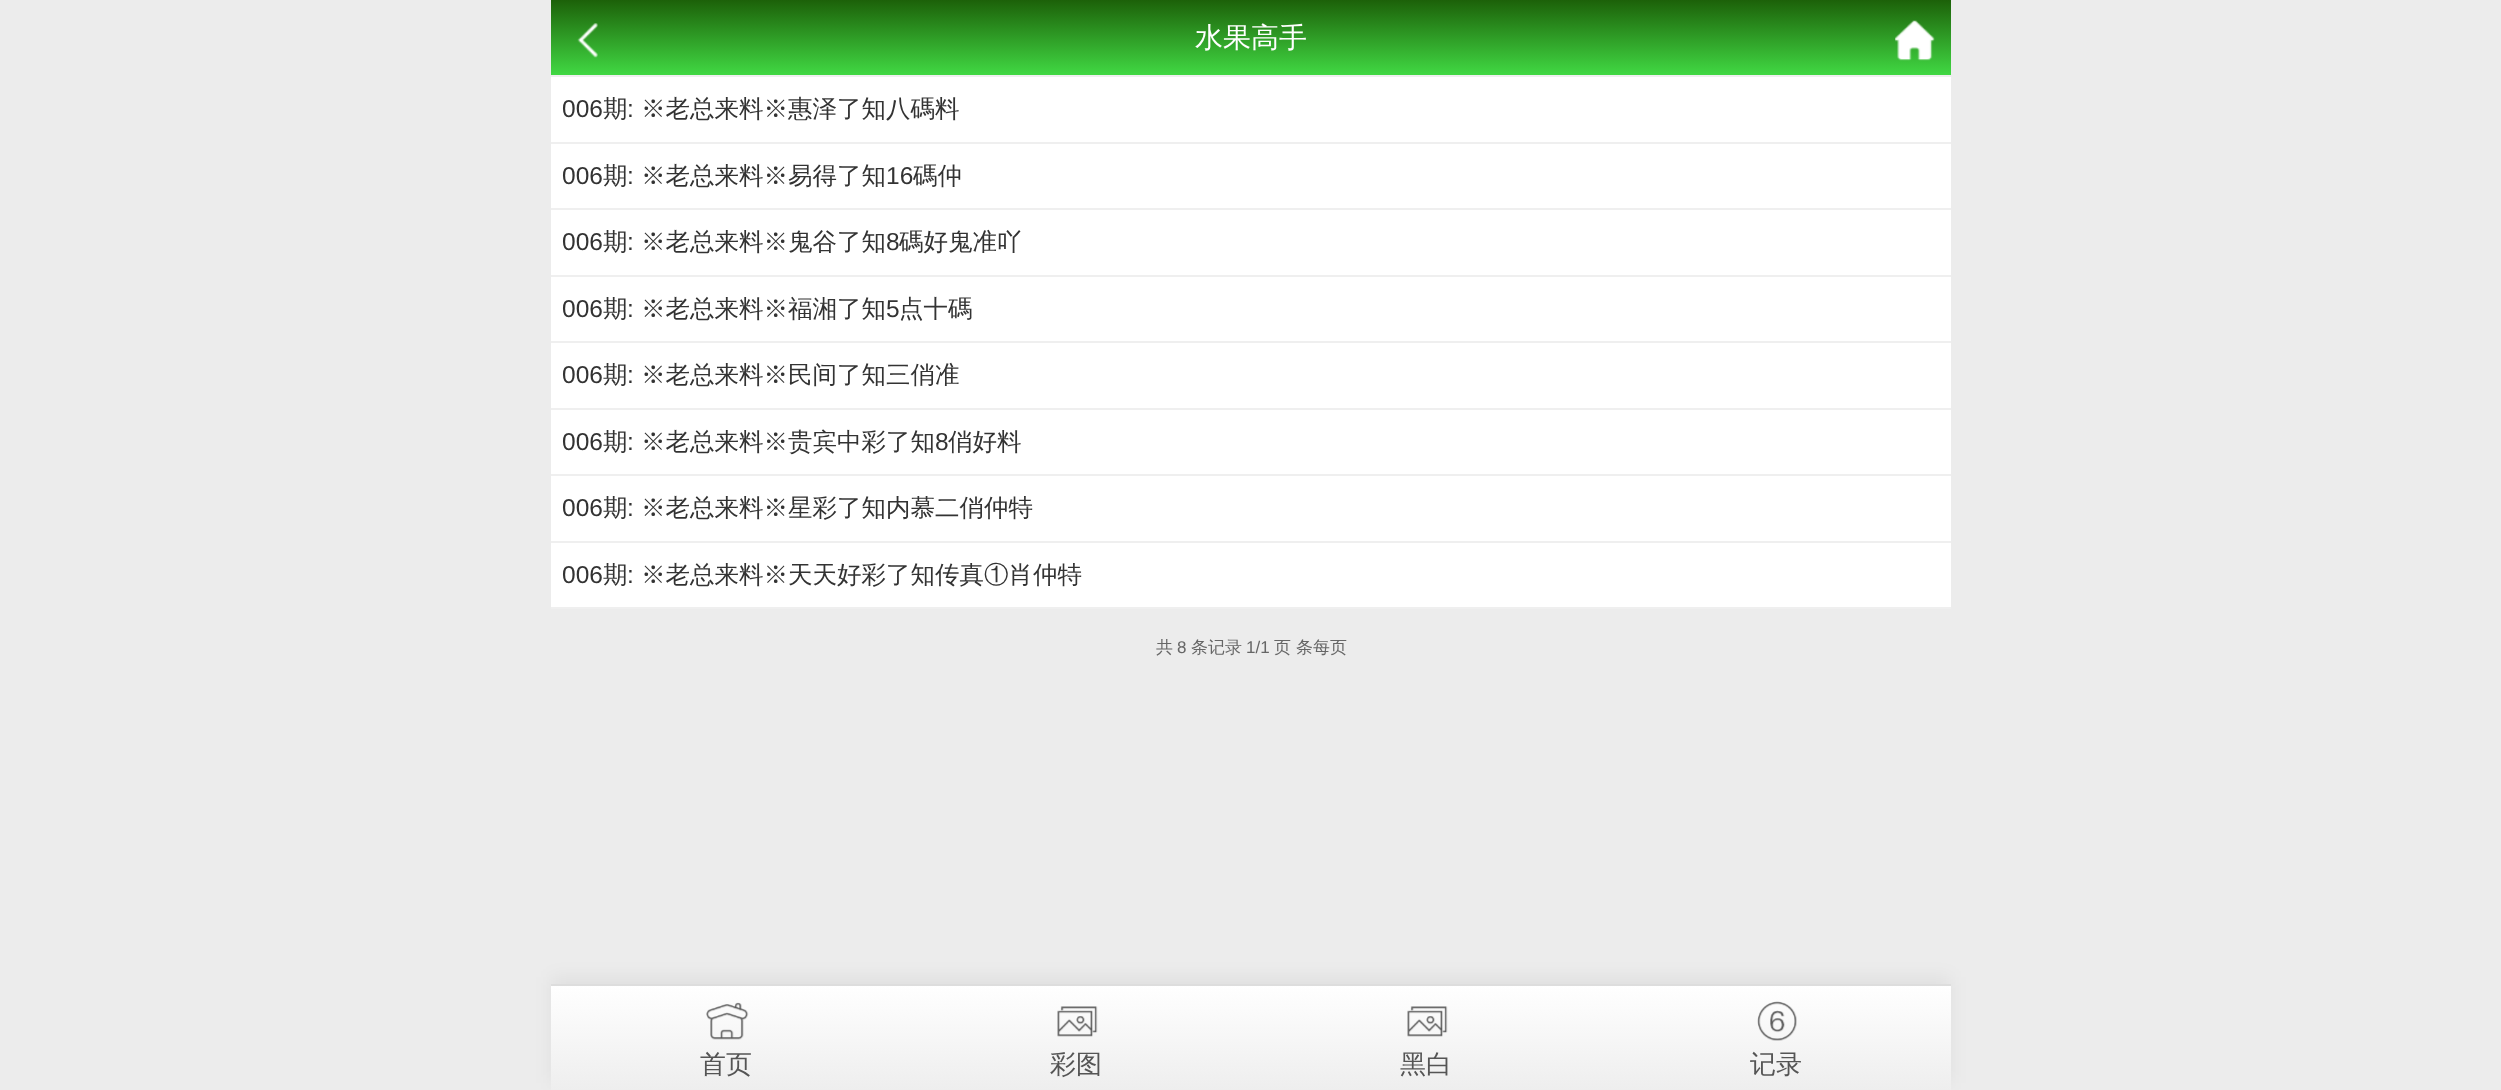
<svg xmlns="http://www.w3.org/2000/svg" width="2501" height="1090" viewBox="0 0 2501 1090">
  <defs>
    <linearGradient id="g1" gradientUnits="userSpaceOnUse" x1="1251" y1="75" x2="1251" y2="0"><stop offset="0" stop-color="rgb(65,216,67)"/><stop offset="1" stop-color="rgb(28,97,9)"/></linearGradient>
    <linearGradient id="g2" gradientUnits="userSpaceOnUse" x1="1251" y1="1090" x2="1251" y2="985"><stop offset="0" stop-color="rgb(238,238,238)"/><stop offset="1" stop-color="rgb(255,255,255)"/></linearGradient>
  </defs>
  <rect width="100%" height="100%" fill="rgb(236,236,236)"/>
  <rect x="551" y="0" width="1400" height="75" fill="url(#g1)"/>
  <rect x="551" y="75" width="1400" height="2" fill="rgb(239,239,239)"/>
  <image x="577" y="23" width="21" height="35" href="pic1.png"/>
  <text x="1195" y="47" font-family="WenQuanYi Zen Hei" font-size="28" font-weight="500" fill="rgb(255,255,255)">水果高手</text>
  <image x="1895" y="20" width="40" height="41" href="pic2.png"/>
  <rect x="551" y="77" width="1400" height="530" fill="rgb(255,255,255)"/>
  <rect x="551" y="142" width="1400" height="2" fill="rgb(239,239,239)"/>
  <text x="562" y="117" font-family="Liberation Sans" font-size="24.5" fill="rgb(51,51,51)">006</text>
  <text x="603" y="117" font-family="WenQuanYi Zen Hei" font-size="24.5" font-weight="500" fill="rgb(51,51,51)">期</text>
  <text x="627" y="117" font-family="Liberation Sans" font-size="24.5" fill="rgb(51,51,51)">:</text>
  <text x="641" y="117" font-family="WenQuanYi Zen Hei" font-size="24.5" font-weight="500" fill="rgb(51,51,51)">※老总来料※惠泽了知八碼料</text>
  <rect x="551" y="208" width="1400" height="2" fill="rgb(239,239,239)"/>
  <text x="562" y="184" font-family="Liberation Sans" font-size="24.5" fill="rgb(51,51,51)">006</text>
  <text x="603" y="184" font-family="WenQuanYi Zen Hei" font-size="24.5" font-weight="500" fill="rgb(51,51,51)">期</text>
  <text x="627" y="184" font-family="Liberation Sans" font-size="24.5" fill="rgb(51,51,51)">:</text>
  <text x="641" y="184" font-family="WenQuanYi Zen Hei" font-size="24.5" font-weight="500" fill="rgb(51,51,51)">※老总来料※易得了知</text>
  <text x="886" y="184" font-family="Liberation Sans" font-size="24.5" fill="rgb(51,51,51)">16</text>
  <text x="913" y="184" font-family="WenQuanYi Zen Hei" font-size="24.5" font-weight="500" fill="rgb(51,51,51)">碼仲</text>
  <rect x="551" y="275" width="1400" height="2" fill="rgb(239,239,239)"/>
  <text x="562" y="250" font-family="Liberation Sans" font-size="24.5" fill="rgb(51,51,51)">006</text>
  <text x="603" y="250" font-family="WenQuanYi Zen Hei" font-size="24.5" font-weight="500" fill="rgb(51,51,51)">期</text>
  <text x="627" y="250" font-family="Liberation Sans" font-size="24.5" fill="rgb(51,51,51)">:</text>
  <text x="641" y="250" font-family="WenQuanYi Zen Hei" font-size="24.5" font-weight="500" fill="rgb(51,51,51)">※老总来料※鬼谷了知</text>
  <text x="886" y="250" font-family="Liberation Sans" font-size="24.5" fill="rgb(51,51,51)">8</text>
  <text x="899" y="250" font-family="WenQuanYi Zen Hei" font-size="24.5" font-weight="500" fill="rgb(51,51,51)">碼好鬼准吖</text>
  <rect x="551" y="341" width="1400" height="2" fill="rgb(239,239,239)"/>
  <text x="562" y="317" font-family="Liberation Sans" font-size="24.5" fill="rgb(51,51,51)">006</text>
  <text x="603" y="317" font-family="WenQuanYi Zen Hei" font-size="24.5" font-weight="500" fill="rgb(51,51,51)">期</text>
  <text x="627" y="317" font-family="Liberation Sans" font-size="24.5" fill="rgb(51,51,51)">:</text>
  <text x="641" y="317" font-family="WenQuanYi Zen Hei" font-size="24.5" font-weight="500" fill="rgb(51,51,51)">※老总来料※福湘了知</text>
  <text x="886" y="317" font-family="Liberation Sans" font-size="24.5" fill="rgb(51,51,51)">5</text>
  <text x="899" y="317" font-family="WenQuanYi Zen Hei" font-size="24.5" font-weight="500" fill="rgb(51,51,51)">点十碼</text>
  <rect x="551" y="408" width="1400" height="2" fill="rgb(239,239,239)"/>
  <text x="562" y="383" font-family="Liberation Sans" font-size="24.5" fill="rgb(51,51,51)">006</text>
  <text x="603" y="383" font-family="WenQuanYi Zen Hei" font-size="24.5" font-weight="500" fill="rgb(51,51,51)">期</text>
  <text x="627" y="383" font-family="Liberation Sans" font-size="24.5" fill="rgb(51,51,51)">:</text>
  <text x="641" y="383" font-family="WenQuanYi Zen Hei" font-size="24.5" font-weight="500" fill="rgb(51,51,51)">※老总来料※民间了知三俏准</text>
  <rect x="551" y="474" width="1400" height="2" fill="rgb(239,239,239)"/>
  <text x="562" y="450" font-family="Liberation Sans" font-size="24.5" fill="rgb(51,51,51)">006</text>
  <text x="603" y="450" font-family="WenQuanYi Zen Hei" font-size="24.5" font-weight="500" fill="rgb(51,51,51)">期</text>
  <text x="627" y="450" font-family="Liberation Sans" font-size="24.5" fill="rgb(51,51,51)">:</text>
  <text x="641" y="450" font-family="WenQuanYi Zen Hei" font-size="24.5" font-weight="500" fill="rgb(51,51,51)">※老总来料※贵宾中彩了知</text>
  <text x="935" y="450" font-family="Liberation Sans" font-size="24.5" fill="rgb(51,51,51)">8</text>
  <text x="948" y="450" font-family="WenQuanYi Zen Hei" font-size="24.5" font-weight="500" fill="rgb(51,51,51)">俏好料</text>
  <rect x="551" y="541" width="1400" height="2" fill="rgb(239,239,239)"/>
  <text x="562" y="516" font-family="Liberation Sans" font-size="24.5" fill="rgb(51,51,51)">006</text>
  <text x="603" y="516" font-family="WenQuanYi Zen Hei" font-size="24.5" font-weight="500" fill="rgb(51,51,51)">期</text>
  <text x="627" y="516" font-family="Liberation Sans" font-size="24.5" fill="rgb(51,51,51)">:</text>
  <text x="641" y="516" font-family="WenQuanYi Zen Hei" font-size="24.5" font-weight="500" fill="rgb(51,51,51)">※老总来料※星彩了知内慕二俏仲特</text>
  <rect x="551" y="607" width="1400" height="2" fill="rgb(239,239,239)"/>
  <text x="562" y="583" font-family="Liberation Sans" font-size="24.5" fill="rgb(51,51,51)">006</text>
  <text x="603" y="583" font-family="WenQuanYi Zen Hei" font-size="24.5" font-weight="500" fill="rgb(51,51,51)">期</text>
  <text x="627" y="583" font-family="Liberation Sans" font-size="24.5" fill="rgb(51,51,51)">:</text>
  <text x="641" y="583" font-family="WenQuanYi Zen Hei" font-size="24.5" font-weight="500" fill="rgb(51,51,51)">※老总来料※天天好彩了知传真①肖仲特</text>
  <text x="1156" y="653" font-family="WenQuanYi Zen Hei" font-size="17" font-weight="500" fill="rgb(102,102,102)">共</text>
  <text x="1177" y="653" font-family="Liberation Sans" font-size="17" fill="rgb(102,102,102)">8</text>
  <text x="1191" y="653" font-family="WenQuanYi Zen Hei" font-size="17" font-weight="500" fill="rgb(102,102,102)">条记录</text>
  <text x="1246" y="653" font-family="Liberation Sans" font-size="17" fill="rgb(102,102,102)">1/1</text>
  <text x="1274" y="653" font-family="WenQuanYi Zen Hei" font-size="17" font-weight="500" fill="rgb(102,102,102)">页 条每页</text>
  <rect x="551" y="977" width="1400" height="106" fill="rgba(0,0,0,0.05)" filter="blur(9px)"/>
  <rect x="551" y="986" width="1400" height="104" fill="url(#g2)"/>
  <rect x="551" y="984" width="1400" height="2" fill="rgb(221,221,221)"/>
  <image x="706" y="1002" width="43" height="38" href="pic3.png"/>
  <text x="700" y="1073" font-family="WenQuanYi Zen Hei" font-size="26" font-weight="500" fill="rgb(85,85,85)">首页</text>
  <image x="1057" y="1006" width="41" height="31" href="pic4.png"/>
  <text x="1050" y="1073" font-family="WenQuanYi Zen Hei" font-size="26" font-weight="500" fill="rgb(85,85,85)">彩图</text>
  <image x="1407" y="1006" width="41" height="31" href="pic4.png"/>
  <text x="1400" y="1073" font-family="WenQuanYi Zen Hei" font-size="26" font-weight="500" fill="rgb(85,85,85)">黑白</text>
  <image x="1757" y="1001" width="40" height="40" href="pic5.png"/>
  <text x="1750" y="1073" font-family="WenQuanYi Zen Hei" font-size="26" font-weight="500" fill="rgb(85,85,85)">记录</text>
</svg>
